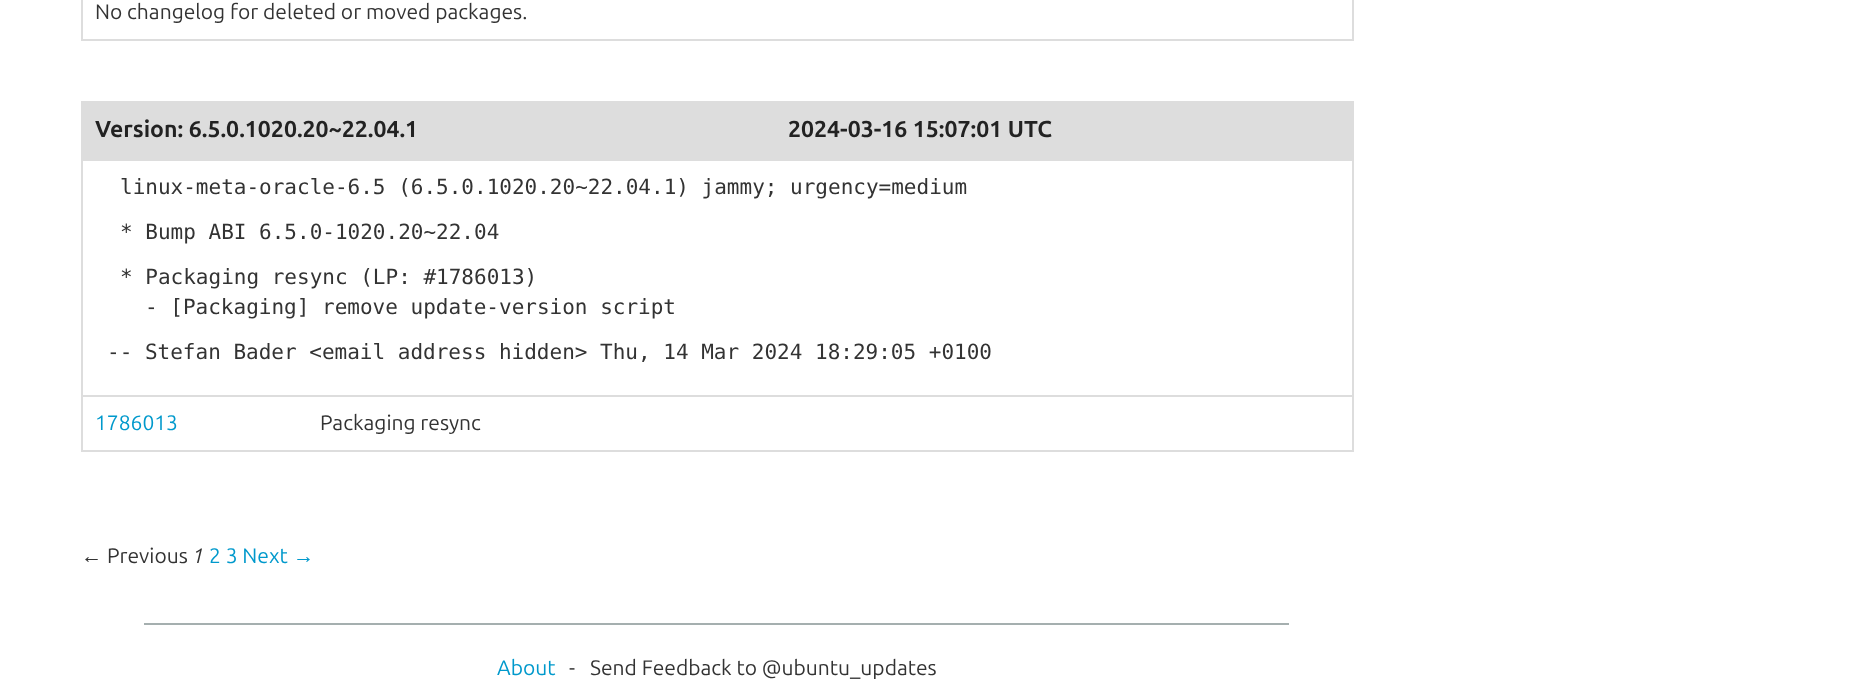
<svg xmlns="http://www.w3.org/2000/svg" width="1871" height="682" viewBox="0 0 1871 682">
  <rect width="100%" height="100%" fill="rgb(255,255,255)"/>
  <rect x="1352" y="0" width="2" height="41" fill="rgb(221,221,221)"/>
  <rect x="81" y="39" width="1272" height="2" fill="rgb(221,221,221)"/>
  <rect x="81" y="0" width="2" height="41" fill="rgb(221,221,221)"/>
  <text x="95" y="19" font-family="Ubuntu" font-size="21" fill="rgb(51,51,51)">No changelog for deleted or moved packages.</text>
  <rect x="81" y="101" width="1272" height="2" fill="rgb(221,221,221)"/>
  <rect x="1352" y="101" width="2" height="351" fill="rgb(221,221,221)"/>
  <rect x="81" y="450" width="1272" height="2" fill="rgb(221,221,221)"/>
  <rect x="81" y="101" width="2" height="351" fill="rgb(221,221,221)"/>
  <rect x="83" y="103" width="1269" height="56" fill="rgb(221,221,221)"/>
  <g font-family="Ubuntu" font-size="23.1" font-weight="bold" fill="rgb(34,34,34)">
    <text x="95" y="137">Version: 6.5.0.1020.20~22.04.1</text>
    <text x="788" y="137">2024-03-16 15:07:01 UTC</text>
  </g>
  <rect x="81" y="159" width="1272" height="2" fill="rgb(221,221,221)"/>
  <g font-family="DejaVu Sans Mono" font-size="21" fill="rgb(51,51,51)">
    <text x="120" y="194">linux-meta-oracle-6.5 (6.5.0.1020.20~22.04.1) jammy; urgency=medium</text>
    <text x="120" y="239">* Bump ABI 6.5.0-1020.20~22.04</text>
    <text x="120" y="284">* Packaging resync (LP: #1786013)</text>
    <text x="145" y="314">- [Packaging] remove update-version script</text>
    <text x="107" y="359">-- Stefan Bader &lt;email address hidden&gt; Thu, 14 Mar 2024 18:29:05 +0100</text>
  </g>
  <rect x="81" y="395" width="1272" height="2" fill="rgb(221,221,221)"/>
  <text x="95" y="430" font-family="Ubuntu" font-size="21" fill="rgb(0,153,204)">1786013</text>
  <text x="320" y="430" font-family="Ubuntu" font-size="21" fill="rgb(51,51,51)">Packaging resync</text>
  <text x="81" y="563" font-family="Liberation Sans" font-size="21" fill="rgb(51,51,51)">←</text>
  <text x="107" y="563" font-family="Ubuntu" font-size="21" fill="rgb(51,51,51)">Previous</text>
  <text x="192" y="563" font-family="Ubuntu" font-size="21" font-style="italic" fill="rgb(51,51,51)">1</text>
  <text x="209" y="563" font-family="Ubuntu" font-size="21" fill="rgb(0,153,204)">2 3 Next</text>
  <text x="293" y="563" font-family="Liberation Sans" font-size="21" fill="rgb(0,153,204)">→</text>
  <rect x="144" y="623" width="1145" height="2" fill="rgb(165,175,175)"/>
  <text x="497" y="675" font-family="Ubuntu" font-size="21" fill="rgb(0,153,204)">About</text>
  <g font-family="Ubuntu" font-size="21" fill="rgb(51,51,51)">
    <text x="569" y="675">-</text>
    <text x="590" y="675">Send Feedback to @ubuntu_updates</text>
  </g>
</svg>
